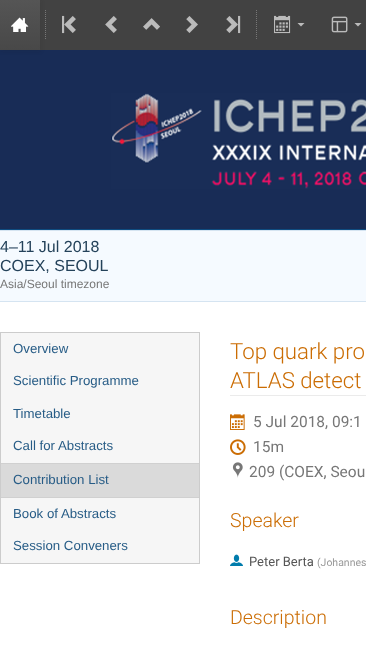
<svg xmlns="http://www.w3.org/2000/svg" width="366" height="650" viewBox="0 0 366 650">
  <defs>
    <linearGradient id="g1" gradientUnits="userSpaceOnUse" x1="20" y1="0" x2="20" y2="50"><stop offset="0" stop-color="rgb(85,85,85)"/><stop offset="1" stop-color="rgb(72,72,72)"/></linearGradient>
  </defs>
  <rect width="100%" height="100%" fill="rgb(255,255,255)"/>
  <rect x="40" y="0" width="326" height="50" fill="rgb(66,66,66)"/>
  <rect x="0" y="50" width="366" height="179" fill="rgb(24,44,86)"/>
  <rect x="1" y="1" width="40" height="50" fill="rgba(20,20,20,0.1)" filter="blur(2px)"/>
  <rect x="0" y="0" width="40" height="50" fill="url(#g1)"/>
  <image x="11" y="17" width="18" height="15" href="pic1.png"/>
  <path d="M45.5 10V40" fill="none" stroke="rgb(119,119,119)" stroke-dasharray="1 1"/>
  <image x="62" y="15" width="14" height="19" href="pic2.png"/>
  <image x="105" y="16" width="12" height="17" href="pic3.png"/>
  <image x="143" y="18" width="17" height="12" href="pic4.png"/>
  <image x="186" y="16" width="12" height="17" href="pic5.png"/>
  <image x="226" y="15" width="15" height="19" href="pic6.png"/>
  <path d="M256.5 10V40" fill="none" stroke="rgb(119,119,119)" stroke-dasharray="1 1"/>
  <image x="274" y="15" width="17" height="19" href="pic7.png"/>
  <path d="M297.5 23L301 26.5L304.5 23Z" fill="rgb(187,187,187)"/>
  <image x="331" y="16" width="17" height="17" href="pic8.png"/>
  <path d="M354.5 23L358 26.5L361.5 23Z" fill="rgb(187,187,187)"/>
  <image x="111" y="93" width="255" height="96" href="pic9.png"/>
  <rect x="0" y="229" width="366" height="1" fill="rgb(15,76,128)"/>
  <rect x="0" y="231" width="366" height="70" fill="rgb(245,250,255)"/>
  <rect x="0" y="230" width="366" height="1" fill="rgb(213,228,241)"/>
  <rect x="0" y="301" width="366" height="1" fill="rgb(213,228,241)"/>
  <g font-family="Liberation Sans" font-size="16" fill="rgb(36,66,90)">
    <text>
      <tspan x="0" y="252">4–11 Jul 2018</tspan>
      <tspan x="0" y="271">COEX, SEOUL</tspan>
    </text>
  </g>
  <text x="0" y="288" font-family="Liberation Sans" font-size="12" fill="rgb(119,119,119)">Asia/Seoul timezone</text>
  <rect x="0.5" y="332.5" width="199" height="231" fill="rgb(246,246,246)" stroke="rgb(204,204,204)"/>
  <g font-family="'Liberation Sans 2'" font-size="13.25" fill="rgb(39,92,134)">
    <text x="13" y="353">Overview</text>
    <text x="13" y="385">Scientific Programme</text>
    <text x="13" y="418">Timetable</text>
    <text x="13" y="450">Call for Abstracts</text>
  </g>
  <rect x="1" y="464" width="198" height="33" fill="rgb(218,218,218)"/>
  <rect x="1" y="463" width="198" height="1" fill="rgb(208,208,208)"/>
  <rect x="1" y="497" width="198" height="1" fill="rgb(208,208,208)"/>
  <g font-family="'Liberation Sans 2'" font-size="13.25" fill="rgb(39,92,134)">
    <text x="13" y="484">Contribution List</text>
    <text x="13" y="518">Book of Abstracts</text>
    <text x="13" y="550">Session Conveners</text>
  </g>
  <rect x="230" y="395" width="136" height="1" fill="rgb(235,235,235)"/>
  <g font-family="Roboto" font-size="22.25" font-weight="300" fill="rgb(203,109,4)">
    <text>
      <tspan x="230" y="359">Top quark pro</tspan>
      <tspan x="230" y="388">ATLAS detect</tspan>
    </text>
  </g>
  <image x="230" y="414" width="15" height="16" href="pic10.png"/>
  <text x="253" y="427" font-family="Roboto" font-size="15.5" fill="rgb(119,119,119)">5 Jul 2018, 09:1</text>
  <image x="230" y="439" width="16" height="16" href="pic11.png"/>
  <text x="253" y="452" font-family="Roboto" font-size="15.5" fill="rgb(119,119,119)">15m</text>
  <image x="232" y="462" width="11" height="16" href="pic12.png"/>
  <text x="249" y="477" font-family="Roboto" font-size="15.5" fill="rgb(119,119,119)">209 (COEX, Seou</text>
  <text x="230" y="527" font-family="Roboto" font-size="19.5" font-weight="300" fill="rgb(203,109,4)">Speaker</text>
  <image x="230" y="554" width="13" height="12" href="pic13.png"/>
  <text x="249" y="566" font-family="Roboto" font-size="13" fill="rgb(85,85,85)">Peter Berta</text>
  <text x="317" y="566" font-family="Roboto" font-size="10.5" fill="rgb(153,153,153)">(Johannes</text>
  <text x="230" y="624" font-family="Roboto" font-size="19.5" font-weight="300" fill="rgb(203,109,4)">Description</text>
</svg>
